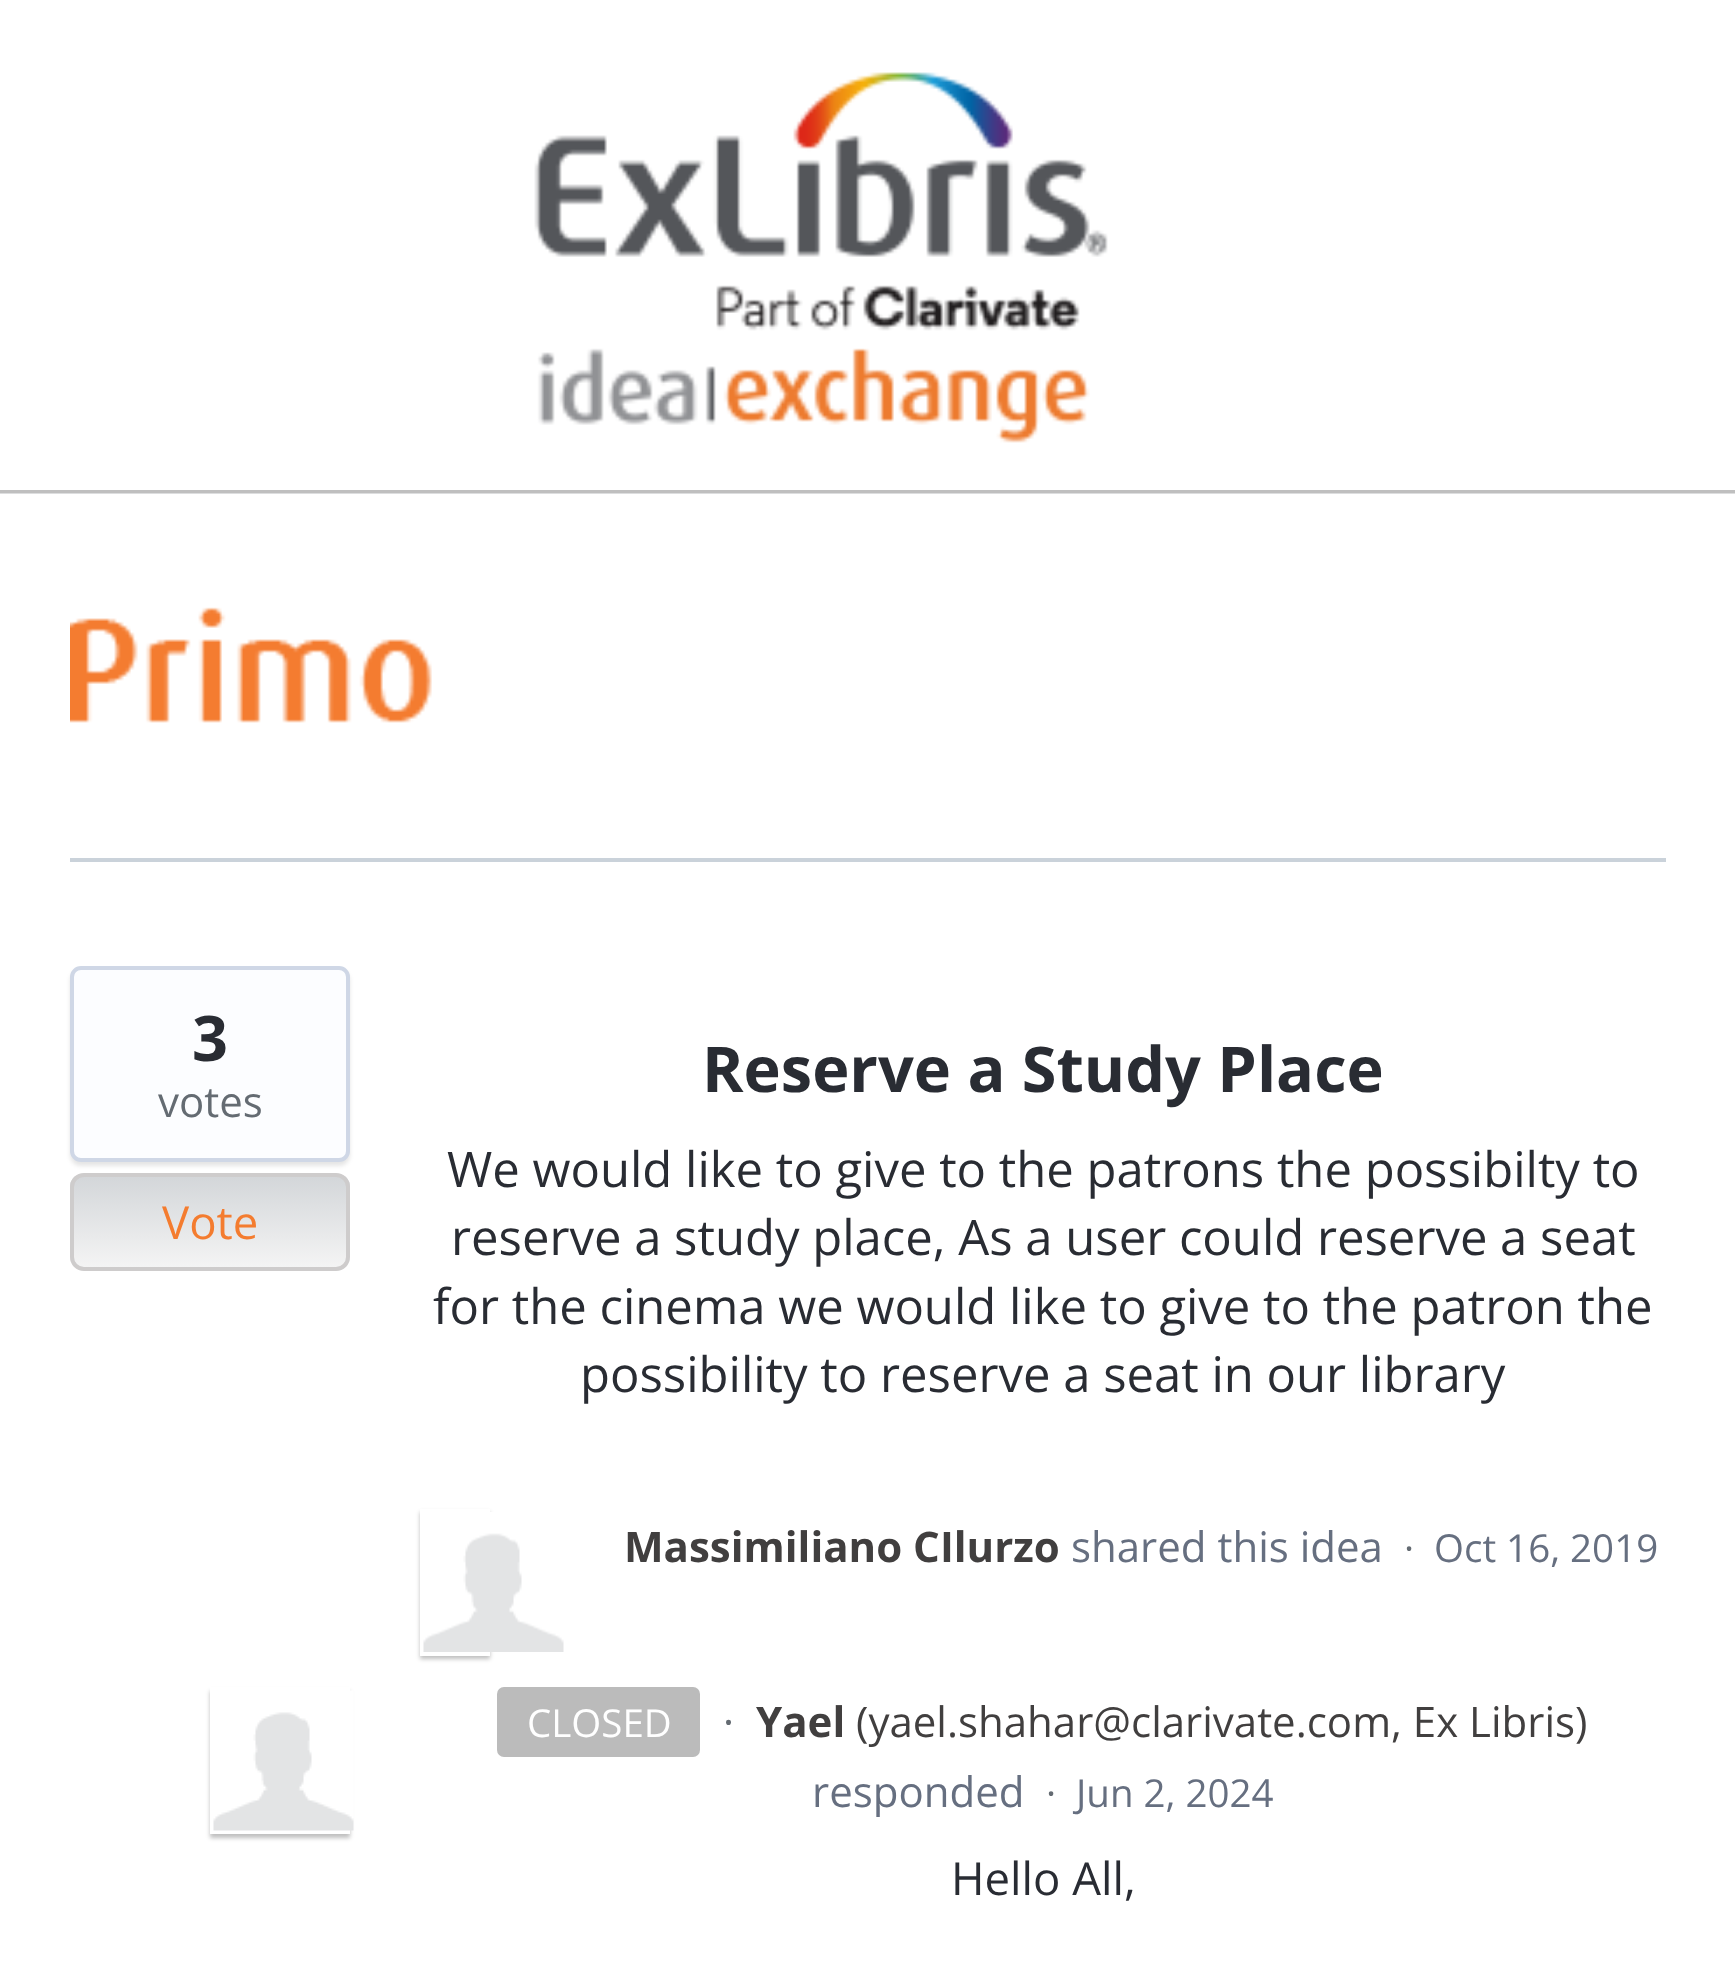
<svg xmlns="http://www.w3.org/2000/svg" width="1735" height="1986" viewBox="0 0 1735 1986">
  <defs>
    <clipPath id="clip1"><rect x="70" y="1173" width="280" height="98" rx="14"/></clipPath>
    <linearGradient id="g1" gradientUnits="userSpaceOnUse" x1="74" y1="1176" x2="74" y2="1267"><stop offset="0" stop-color="rgb(211,214,217)"/><stop offset="1" stop-color="rgb(244,244,244)"/></linearGradient>
    <clipPath id="clip2"><path d="M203 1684H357V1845H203ZM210 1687H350V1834H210Z" clip-rule="evenodd"/></clipPath>
  </defs>
  <rect width="100%" height="100%" fill="rgb(255,255,255)"/>
  <rect x="0" y="490" width="1735" height="3" fill="rgb(191,191,191)"/>
  <image x="534" y="72" width="574" height="371" href="pic1.png"/>
  <rect x="0" y="493" width="1735" height="1" fill="rgb(221,222,223)"/>
  <image x="70" y="607" width="362" height="116" href="pic2.png"/>
  <rect x="70" y="858" width="1596" height="4" fill="rgb(202,210,218)"/>
  <rect x="70" y="970" width="280" height="196" rx="11" fill="rgba(0,0,0,0.1)" filter="blur(2px)"/>
  <rect x="72" y="968" width="276" height="192" rx="9" fill="rgb(252,253,255)" stroke="rgb(207,215,230)" stroke-width="4"/>
  <text x="192" y="1061" font-family="Open Sans" font-size="63" font-weight="bold" fill="rgb(41,44,51)">3</text>
  <text x="158" y="1117" font-family="Open Sans" font-size="42" fill="rgb(100,107,114)">votes</text>
  <g clip-path="url(#clip1)">
    <rect x="70" y="1176" width="280" height="91" fill="url(#g1)"/>
  </g>
  <rect x="72" y="1175" width="276" height="94" rx="12" fill="none" stroke="rgb(206,204,204)" stroke-width="4"/>
  <text x="162" y="1239" font-family="Open Sans" font-size="45.5" fill="rgb(244,124,47)">Vote</text>
  <text x="702" y="1092" font-family="Open Sans" font-size="63" font-weight="bold" fill="rgb(41,44,51)">Reserve a Study Place</text>
  <g font-family="Open Sans" font-size="49" fill="rgb(41,44,51)">
    <text x="447" y="1187">We would like to give to the patrons the possibilty to</text>
    <text x="451" y="1255">reserve a study place, As a user could reserve a seat</text>
    <text x="433" y="1324">for the cinema we would like to give to the patron the</text>
    <text x="580" y="1392">possibility to reserve a seat in our library</text>
  </g>
  <rect x="420" y="1512" width="70" height="147" fill="rgba(0,0,0,0.25)" filter="blur(2px)"/>
  <rect x="422" y="1511" width="66" height="143" fill="none" stroke="rgb(255,255,255)" stroke-width="4"/>
  <image x="423" y="1512" width="141" height="140" href="pic3.png"/>
  <text x="624" y="1562" font-family="Open Sans" font-size="42" font-weight="bold" fill="rgb(65,63,63)">Massimiliano CIlurzo</text>
  <text x="1071" y="1562" font-family="Open Sans" font-size="42" fill="rgb(102,111,128)">shared this idea</text>
  <text x="1404" y="1562" font-family="Open Sans" font-size="38.5" fill="rgb(100,107,114)">·</text>
  <text x="1434" y="1562" font-family="Open Sans" font-size="38.5" fill="rgb(102,111,128)">Oct 16, 2019</text>
  <rect x="497" y="1687" width="203" height="70" rx="7" fill="rgb(187,187,187)"/>
  <text x="527" y="1737" font-family="Open Sans" font-size="38.5" fill="rgb(255,255,255)">CLOSED</text>
  <text x="723" y="1737" font-family="Open Sans" font-size="42" fill="rgb(100,107,114)">·</text>
  <g clip-path="url(#clip2)">
    <rect x="210" y="1691" width="140" height="147" fill="rgba(0,0,0,0.25)" filter="blur(2px)"/>
  </g>
  <image x="213" y="1690" width="141" height="141" href="pic4.png"/>
  <text x="756" y="1737" font-family="Open Sans" font-size="42" font-weight="bold" fill="rgb(65,63,63)">Yael</text>
  <text x="856" y="1737" font-family="Open Sans" font-size="42" fill="rgb(65,63,63)">(yael.shahar@clarivate.com, Ex Libris)</text>
  <text x="812" y="1807" font-family="Open Sans" font-size="42" fill="rgb(102,111,128)">responded</text>
  <text x="1046" y="1807" font-family="Open Sans" font-size="38.5" fill="rgb(100,107,114)">·</text>
  <text x="1076" y="1807" font-family="Open Sans" font-size="38.5" fill="rgb(102,111,128)">Jun 2, 2024</text>
  <text x="951" y="1895" font-family="Open Sans" font-size="45.5" fill="rgb(41,44,51)">Hello All,</text>
</svg>
